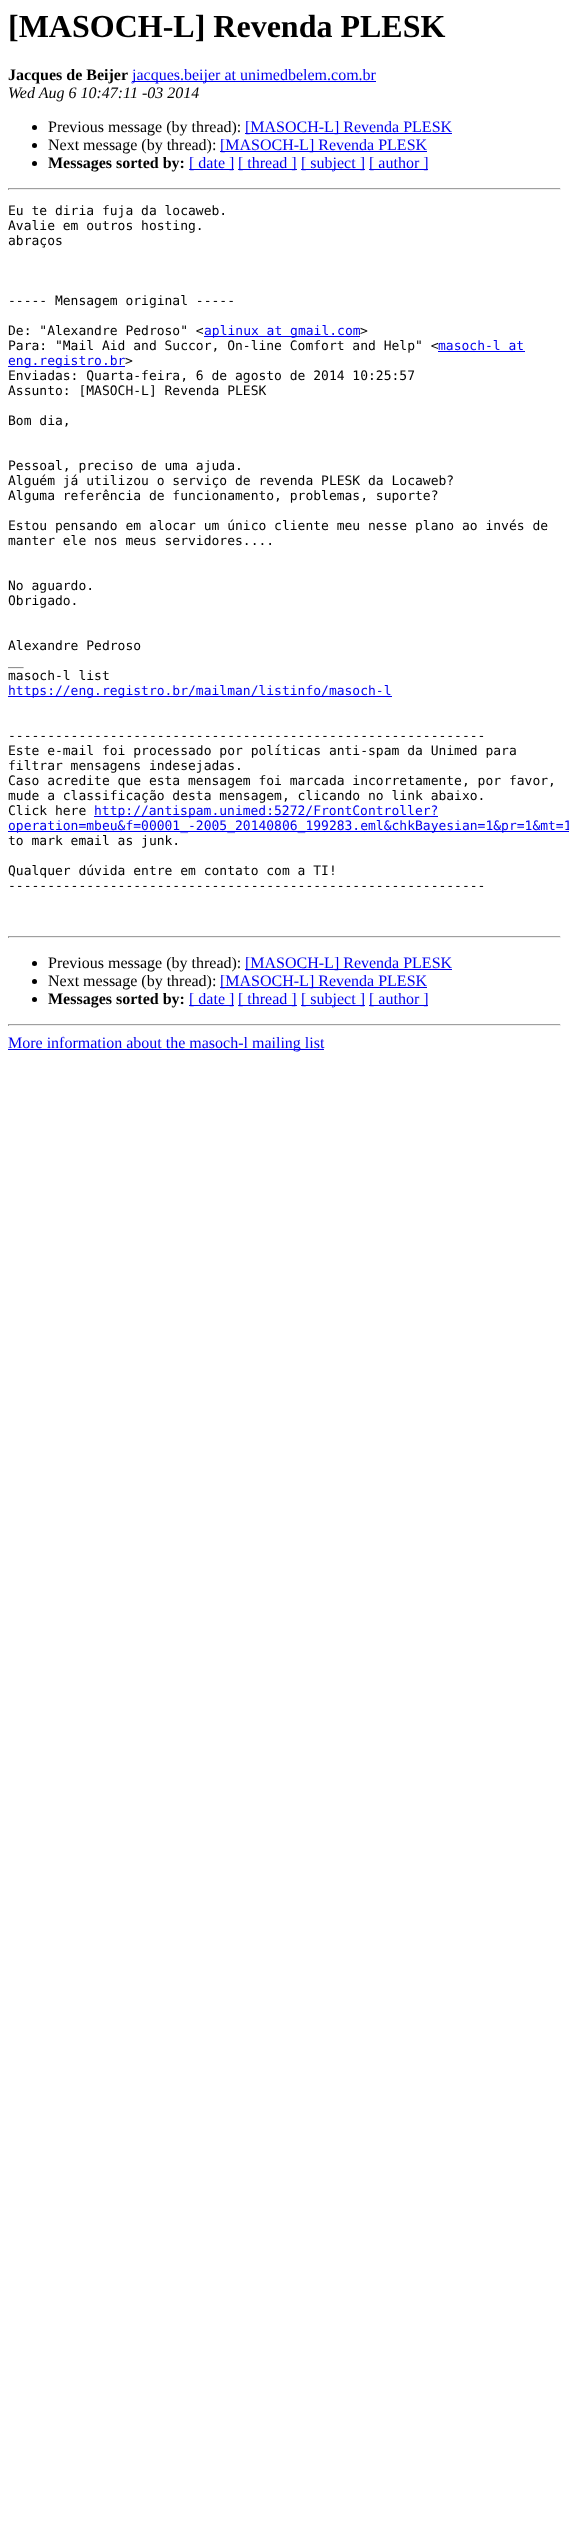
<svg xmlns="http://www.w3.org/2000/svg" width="569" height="2522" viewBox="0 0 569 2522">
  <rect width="100%" height="100%" fill="rgb(255,255,255)"/>
  <text x="8" y="37" font-family="Liberation Serif" font-size="32" font-weight="bold" fill="rgb(0,0,0)">[MASOCH-L] Revenda PLESK</text>
  <text x="8" y="80" font-family="Liberation Serif" font-size="16" font-weight="bold" fill="rgb(0,0,0)">Jacques de Beijer</text>
  <rect x="132" y="81" width="244" height="1" fill="rgb(0,0,238)"/>
  <text x="132" y="80" font-family="Liberation Serif" font-size="16" fill="rgb(0,0,238)">jacques.beijer at unimedbelem.com.br</text>
  <text x="8" y="98" font-family="Liberation Serif" font-size="16" font-style="italic" fill="rgb(0,0,0)">Wed Aug 6 10:47:11 -03 2014</text>
  <circle cx="34.5" cy="127.5" r="2.5" fill="rgb(0,0,0)"/>
  <text x="48" y="132" font-family="Liberation Serif" font-size="16" fill="rgb(0,0,0)">Previous message (by thread):</text>
  <rect x="245" y="133" width="207" height="1" fill="rgb(0,0,238)"/>
  <text x="245" y="132" font-family="Liberation Serif" font-size="16" fill="rgb(0,0,238)">[MASOCH-L] Revenda PLESK</text>
  <circle cx="34.5" cy="145.5" r="2.5" fill="rgb(0,0,0)"/>
  <text x="48" y="150" font-family="Liberation Serif" font-size="16" fill="rgb(0,0,0)">Next message (by thread):</text>
  <rect x="220" y="151" width="207" height="1" fill="rgb(0,0,238)"/>
  <text x="220" y="150" font-family="Liberation Serif" font-size="16" fill="rgb(0,0,238)">[MASOCH-L] Revenda PLESK</text>
  <circle cx="34.5" cy="163.5" r="2.5" fill="rgb(0,0,0)"/>
  <text x="48" y="168" font-family="Liberation Serif" font-size="16" font-weight="bold" fill="rgb(0,0,0)">Messages sorted by:</text>
  <rect x="189" y="169" width="45" height="1" fill="rgb(0,0,238)"/>
  <text x="189" y="168" font-family="Liberation Serif" font-size="16" fill="rgb(0,0,238)">[ date ]</text>
  <rect x="238" y="169" width="59" height="1" fill="rgb(0,0,238)"/>
  <text x="238" y="168" font-family="Liberation Serif" font-size="16" fill="rgb(0,0,238)">[ thread ]</text>
  <rect x="301" y="169" width="64" height="1" fill="rgb(0,0,238)"/>
  <text x="301" y="168" font-family="Liberation Serif" font-size="16" fill="rgb(0,0,238)">[ subject ]</text>
  <rect x="369" y="169" width="59" height="1" fill="rgb(0,0,238)"/>
  <text x="369" y="168" font-family="Liberation Serif" font-size="16" fill="rgb(0,0,238)">[ author ]</text>
  <rect x="8" y="188" width="553" height="1" fill="rgb(159,159,159)"/>
  <rect x="560" y="188" width="1" height="2" fill="rgb(238,238,238)"/>
  <rect x="8" y="189" width="553" height="1" fill="rgb(238,238,238)"/>
  <rect x="8" y="188" width="1" height="2" fill="rgb(159,159,159)"/>
  <g font-family="DejaVu Sans Mono" font-size="13" fill="rgb(0,0,0)">
    <text>
      <tspan x="8" y="215">Eu te diria fuja da locaweb.</tspan>
      <tspan x="8" y="230">Avalie em outros hosting.</tspan>
      <tspan x="8" y="245">abraços</tspan>
    </text>
    <text x="8" y="305">----- Mensagem original -----</text>
    <text x="8" y="335">De: "Alexandre Pedroso" &lt;</text>
  </g>
  <rect x="204" y="336" width="156" height="1" fill="rgb(0,0,238)"/>
  <text x="204" y="335" font-family="DejaVu Sans Mono" font-size="13" fill="rgb(0,0,238)">aplinux at gmail.com</text>
  <g font-family="DejaVu Sans Mono" font-size="13" fill="rgb(0,0,0)">
    <text x="360" y="335">&gt;</text>
    <text x="8" y="350">Para: "Mail Aid and Succor, On-line Comfort and Help" &lt;</text>
  </g>
  <text x="438" y="350" font-family="DejaVu Sans Mono" font-size="13" fill="rgb(0,0,238)">masoch-l at</text>
  <rect x="438" y="351" width="87" height="1" fill="rgb(0,0,238)"/>
  <rect x="8" y="366" width="117" height="1" fill="rgb(0,0,238)"/>
  <text x="8" y="365" font-family="DejaVu Sans Mono" font-size="13" fill="rgb(0,0,238)">eng.registro.br</text>
  <g font-family="DejaVu Sans Mono" font-size="13" fill="rgb(0,0,0)">
    <text x="125" y="365">&gt;</text>
    <text>
      <tspan x="8" y="380">Enviadas: Quarta-feira, 6 de agosto de 2014 10:25:57</tspan>
      <tspan x="8" y="395">Assunto: [MASOCH-L] Revenda PLESK</tspan>
    </text>
    <text x="8" y="425">Bom dia,</text>
    <text>
      <tspan x="8" y="470">Pessoal, preciso de uma ajuda.</tspan>
      <tspan x="8" y="485">Alguém já utilizou o serviço de revenda PLESK da Locaweb?</tspan>
      <tspan x="8" y="500">Alguma referência de funcionamento, problemas, suporte?</tspan>
    </text>
    <text>
      <tspan x="8" y="530">Estou pensando em alocar um único cliente meu nesse plano ao invés de</tspan>
      <tspan x="8" y="545">manter ele nos meus servidores....</tspan>
    </text>
    <text>
      <tspan x="8" y="590">No aguardo.</tspan>
      <tspan x="8" y="605">Obrigado.</tspan>
    </text>
    <text>
      <tspan x="8" y="650">Alexandre Pedroso</tspan>
      <tspan x="8" y="665">__</tspan>
      <tspan x="8" y="680">masoch-l list</tspan>
    </text>
  </g>
  <rect x="8" y="696" width="384" height="1" fill="rgb(0,0,238)"/>
  <text x="8" y="695" font-family="DejaVu Sans Mono" font-size="13" fill="rgb(0,0,238)">https://eng.registro.br/mailman/listinfo/masoch-l</text>
  <g font-family="DejaVu Sans Mono" font-size="13" fill="rgb(0,0,0)">
    <text>
      <tspan x="8" y="740">-------------------------------------------------------------</tspan>
      <tspan x="8" y="755">Este e-mail foi processado por políticas anti-spam da Unimed para</tspan>
      <tspan x="8" y="770">filtrar mensagens indesejadas.</tspan>
      <tspan x="8" y="785">Caso acredite que esta mensagem foi marcada incorretamente, por favor,</tspan>
      <tspan x="8" y="800">mude a classificação desta mensagem, clicando no link abaixo.</tspan>
      <tspan x="8" y="815">Click here</tspan>
    </text>
  </g>
  <rect x="94" y="816" width="344" height="1" fill="rgb(0,0,238)"/>
  <text x="94" y="815" font-family="DejaVu Sans Mono" font-size="13" fill="rgb(0,0,238)">http://antispam.unimed:5272/FrontController?</text>
  <rect x="8" y="831" width="561" height="1" fill="rgb(0,0,238)"/>
  <text x="8" y="830" font-family="DejaVu Sans Mono" font-size="13" fill="rgb(0,0,238)">operation=mbeu&amp;f=00001_-2005_20140806_199283.eml&amp;chkBayesian=1&amp;pr=1&amp;mt=1</text>
  <g font-family="DejaVu Sans Mono" font-size="13" fill="rgb(0,0,0)">
    <text x="8" y="845">to mark email as junk.</text>
    <text>
      <tspan x="8" y="875">Qualquer dúvida entre em contato com a TI!</tspan>
      <tspan x="8" y="890">-------------------------------------------------------------</tspan>
    </text>
  </g>
  <rect x="8" y="936" width="553" height="1" fill="rgb(159,159,159)"/>
  <rect x="560" y="936" width="1" height="2" fill="rgb(238,238,238)"/>
  <rect x="8" y="937" width="553" height="1" fill="rgb(238,238,238)"/>
  <rect x="8" y="936" width="1" height="2" fill="rgb(159,159,159)"/>
  <circle cx="34.5" cy="963.5" r="2.5" fill="rgb(0,0,0)"/>
  <text x="48" y="968" font-family="Liberation Serif" font-size="16" fill="rgb(0,0,0)">Previous message (by thread):</text>
  <rect x="245" y="969" width="207" height="1" fill="rgb(0,0,238)"/>
  <text x="245" y="968" font-family="Liberation Serif" font-size="16" fill="rgb(0,0,238)">[MASOCH-L] Revenda PLESK</text>
  <circle cx="34.5" cy="981.5" r="2.5" fill="rgb(0,0,0)"/>
  <text x="48" y="986" font-family="Liberation Serif" font-size="16" fill="rgb(0,0,0)">Next message (by thread):</text>
  <rect x="220" y="987" width="207" height="1" fill="rgb(0,0,238)"/>
  <text x="220" y="986" font-family="Liberation Serif" font-size="16" fill="rgb(0,0,238)">[MASOCH-L] Revenda PLESK</text>
  <circle cx="34.5" cy="999.5" r="2.5" fill="rgb(0,0,0)"/>
  <text x="48" y="1004" font-family="Liberation Serif" font-size="16" font-weight="bold" fill="rgb(0,0,0)">Messages sorted by:</text>
  <rect x="189" y="1005" width="45" height="1" fill="rgb(0,0,238)"/>
  <text x="189" y="1004" font-family="Liberation Serif" font-size="16" fill="rgb(0,0,238)">[ date ]</text>
  <rect x="238" y="1005" width="59" height="1" fill="rgb(0,0,238)"/>
  <text x="238" y="1004" font-family="Liberation Serif" font-size="16" fill="rgb(0,0,238)">[ thread ]</text>
  <rect x="301" y="1005" width="64" height="1" fill="rgb(0,0,238)"/>
  <text x="301" y="1004" font-family="Liberation Serif" font-size="16" fill="rgb(0,0,238)">[ subject ]</text>
  <rect x="369" y="1005" width="59" height="1" fill="rgb(0,0,238)"/>
  <text x="369" y="1004" font-family="Liberation Serif" font-size="16" fill="rgb(0,0,238)">[ author ]</text>
  <rect x="8" y="1024" width="553" height="1" fill="rgb(159,159,159)"/>
  <rect x="560" y="1024" width="1" height="2" fill="rgb(238,238,238)"/>
  <rect x="8" y="1025" width="553" height="1" fill="rgb(238,238,238)"/>
  <rect x="8" y="1024" width="1" height="2" fill="rgb(159,159,159)"/>
  <rect x="8" y="1049" width="316" height="1" fill="rgb(0,0,238)"/>
  <text x="8" y="1048" font-family="Liberation Serif" font-size="16" fill="rgb(0,0,238)">More information about the masoch-l mailing list</text>
</svg>
